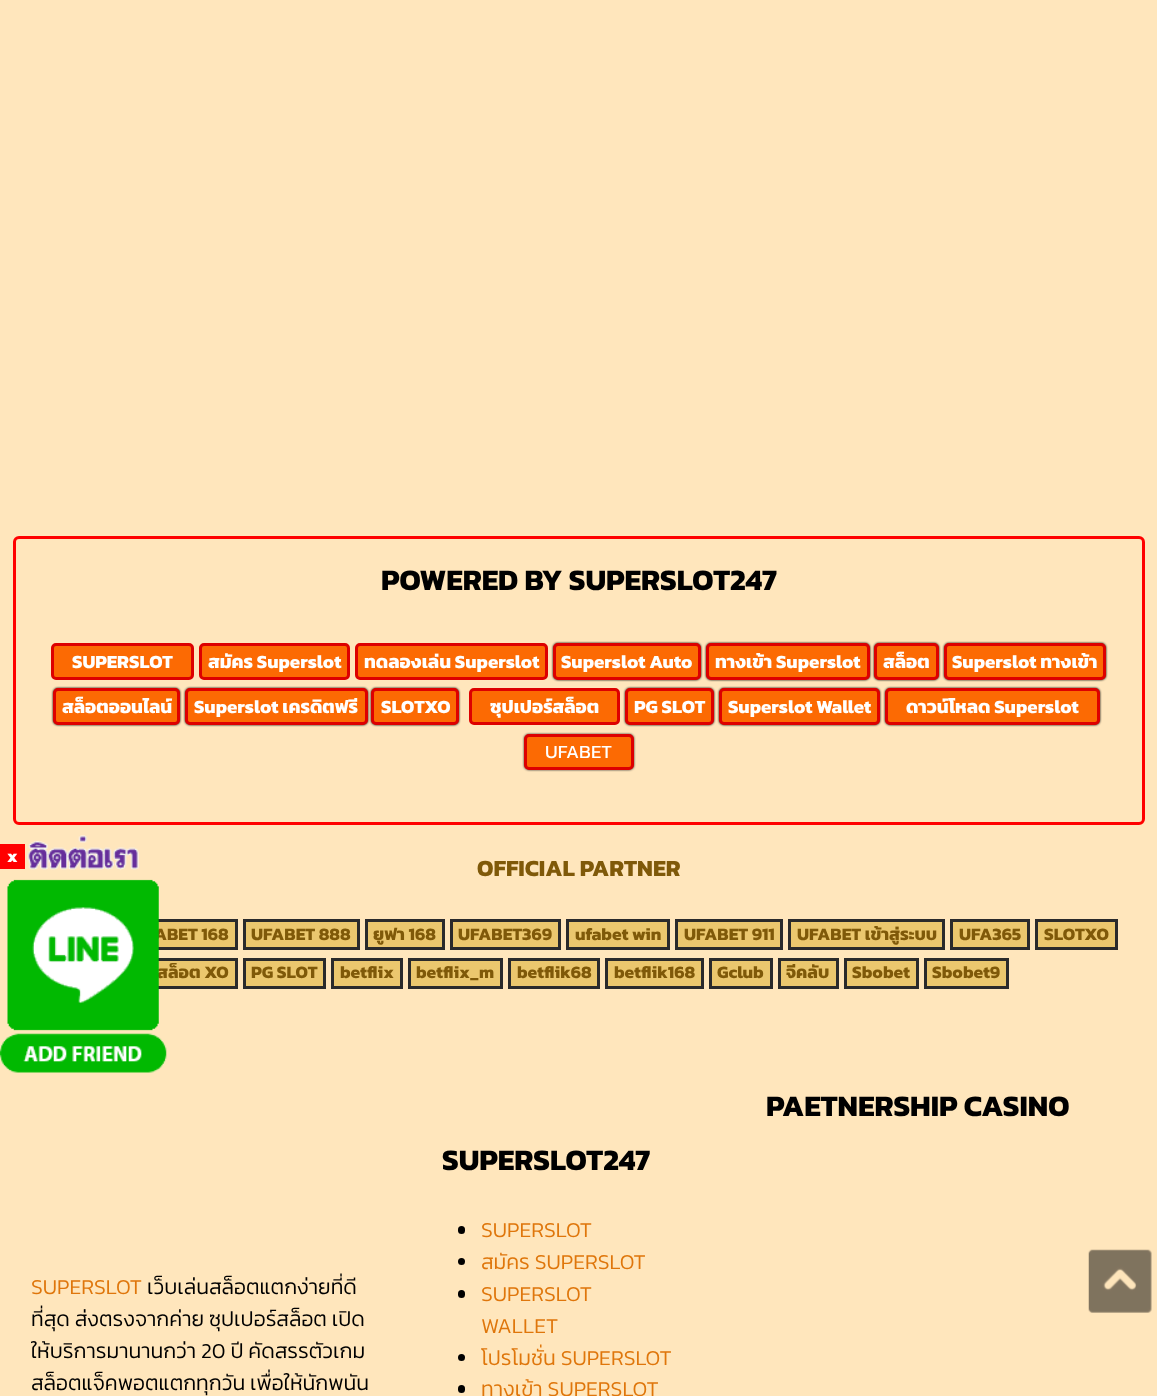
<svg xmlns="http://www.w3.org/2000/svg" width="1157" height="1396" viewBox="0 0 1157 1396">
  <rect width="100%" height="100%" fill="rgb(255,230,188)"/>
  <rect x="14.5" y="537.5" width="1129" height="286" rx="4.5" fill="none" stroke="rgb(255,0,0)" stroke-width="3"/>
  <text x="381" y="590" font-family="Kanit" font-size="30" font-weight="bold" fill="rgb(0,0,0)">POWERED BY SUPERSLOT247</text>
  <rect x="52.5" y="644.5" width="140" height="34" rx="3.5" fill="rgb(252,106,3)" stroke="rgb(221,0,0)" stroke-width="3"/>
  <text x="72" y="668" font-family="Kanit" font-size="18.75" font-weight="bold" fill="rgb(255,255,255)">SUPERSLOT</text>
  <rect x="200.5" y="644.5" width="148" height="34" rx="3.5" fill="rgb(252,106,3)" stroke="rgb(221,0,0)" stroke-width="3"/>
  <text x="208" y="668" font-family="Kanit" font-size="18.75" font-weight="bold" fill="rgb(255,255,255)">สมัคร Superslot</text>
  <rect x="356.5" y="644.5" width="190" height="34" rx="3.5" fill="rgb(252,106,3)" stroke="rgb(221,0,0)" stroke-width="3"/>
  <text x="364" y="668" font-family="Kanit" font-size="18.75" font-weight="bold" fill="rgb(255,255,255)">ทดลองเล่น Superslot</text>
  <rect x="553" y="643" width="148" height="37" rx="5" fill="rgb(0,0,0)" filter="blur(1px)"/>
  <rect x="554.5" y="644.5" width="145" height="34" rx="3.5" fill="rgb(252,106,3)" stroke="rgb(221,0,0)" stroke-width="3"/>
  <text x="561" y="668" font-family="Kanit" font-size="18.75" font-weight="bold" fill="rgb(255,255,255)">Superslot Auto</text>
  <rect x="706" y="643" width="164" height="37" rx="5" fill="rgb(0,0,0)" filter="blur(1px)"/>
  <rect x="707.5" y="644.5" width="161" height="34" rx="3.5" fill="rgb(252,106,3)" stroke="rgb(221,0,0)" stroke-width="3"/>
  <text x="715" y="668" font-family="Kanit" font-size="18.75" font-weight="bold" fill="rgb(255,255,255)">ทางเข้า Superslot</text>
  <rect x="874" y="643" width="65" height="37" rx="5" fill="rgb(0,0,0)" filter="blur(1px)"/>
  <rect x="875.5" y="644.5" width="62" height="34" rx="3.5" fill="rgb(252,106,3)" stroke="rgb(221,0,0)" stroke-width="3"/>
  <text x="883" y="668" font-family="Kanit" font-size="18.75" font-weight="bold" fill="rgb(255,255,255)">สล็อต</text>
  <rect x="944" y="643" width="162" height="37" rx="5" fill="rgb(0,0,0)" filter="blur(1px)"/>
  <rect x="945.5" y="644.5" width="159" height="34" rx="3.5" fill="rgb(252,106,3)" stroke="rgb(221,0,0)" stroke-width="3"/>
  <text x="952" y="668" font-family="Kanit" font-size="18.75" font-weight="bold" fill="rgb(255,255,255)">Superslot ทางเข้า</text>
  <rect x="53" y="688" width="127" height="37" rx="5" fill="rgb(0,0,0)" filter="blur(1px)"/>
  <rect x="54.5" y="689.5" width="124" height="34" rx="3.5" fill="rgb(252,106,3)" stroke="rgb(221,0,0)" stroke-width="3"/>
  <text x="62" y="713" font-family="Kanit" font-size="18.75" font-weight="bold" fill="rgb(255,255,255)">สล็อตออนไลน์</text>
  <rect x="185" y="688" width="183" height="37" rx="5" fill="rgb(0,0,0)" filter="blur(1px)"/>
  <rect x="186.5" y="689.5" width="180" height="34" rx="3.5" fill="rgb(252,106,3)" stroke="rgb(221,0,0)" stroke-width="3"/>
  <text x="194" y="713" font-family="Kanit" font-size="18.75" font-weight="bold" fill="rgb(255,255,255)">Superslot เครดิตฟรี</text>
  <rect x="371" y="688" width="88" height="37" rx="5" fill="rgb(0,0,0)" filter="blur(1px)"/>
  <rect x="372.5" y="689.5" width="85" height="34" rx="3.5" fill="rgb(252,106,3)" stroke="rgb(221,0,0)" stroke-width="3"/>
  <text x="381" y="713" font-family="Kanit" font-size="18.75" font-weight="bold" fill="rgb(255,255,255)">SLOTXO</text>
  <rect x="470.5" y="689.5" width="148" height="34" rx="3.5" fill="rgb(252,106,3)" stroke="rgb(221,0,0)" stroke-width="3"/>
  <text x="490" y="713" font-family="Kanit" font-size="18.75" font-weight="bold" fill="rgb(255,255,255)">ซุปเปอร์สล็อต</text>
  <rect x="625" y="688" width="89" height="37" rx="5" fill="rgb(0,0,0)" filter="blur(1px)"/>
  <rect x="626.5" y="689.5" width="86" height="34" rx="3.5" fill="rgb(252,106,3)" stroke="rgb(221,0,0)" stroke-width="3"/>
  <text x="634" y="713" font-family="Kanit" font-size="18.75" font-weight="bold" fill="rgb(255,255,255)">PG SLOT</text>
  <rect x="719" y="688" width="161" height="37" rx="5" fill="rgb(0,0,0)" filter="blur(1px)"/>
  <rect x="720.5" y="689.5" width="158" height="34" rx="3.5" fill="rgb(252,106,3)" stroke="rgb(221,0,0)" stroke-width="3"/>
  <text x="728" y="713" font-family="Kanit" font-size="18.75" font-weight="bold" fill="rgb(255,255,255)">Superslot Wallet</text>
  <rect x="885" y="688" width="215" height="37" rx="5" fill="rgb(0,0,0)" filter="blur(1px)"/>
  <rect x="886.5" y="689.5" width="212" height="34" rx="3.5" fill="rgb(252,106,3)" stroke="rgb(221,0,0)" stroke-width="3"/>
  <text x="906" y="713" font-family="Kanit" font-size="18.75" font-weight="bold" fill="rgb(255,255,255)">ดาวน์โหลด Superslot</text>
  <rect x="524" y="734" width="110" height="36" rx="5" fill="rgb(51,51,51)" filter="blur(1px)"/>
  <rect x="525.5" y="735.5" width="107" height="33" rx="3.5" fill="rgb(252,106,3)" stroke="rgb(221,0,0)" stroke-width="3"/>
  <text x="545" y="758" font-family="Kanit" font-size="18.75" fill="rgb(255,255,255)">UFABET</text>
  <rect x="158" y="922" width="77" height="25" fill="rgb(235,199,110)"/>
  <rect x="126.5" y="920.5" width="110" height="28" fill="none" stroke="rgb(42,42,43)" stroke-width="3"/>
  <text x="154" y="940" font-family="Kanit" font-size="17.5" font-weight="bold" fill="rgb(127,89,9)">ABET 168</text>
  <rect x="158" y="961" width="77" height="25" fill="rgb(235,199,110)"/>
  <rect x="150.5" y="959.5" width="86" height="28" fill="none" stroke="rgb(42,42,43)" stroke-width="3"/>
  <text x="157" y="978" font-family="Kanit" font-size="17.5" font-weight="bold" fill="rgb(127,89,9)">สล็อต XO</text>
  <image x="0" y="835" width="167" height="238" href="pic1.png"/>
  <rect x="0" y="844" width="25" height="25" fill="rgb(255,0,0)"/>
  <text x="7" y="862" font-family="Kanit" font-size="17.5" font-weight="bold" fill="rgb(255,255,255)">x</text>
  <text x="477" y="876" font-family="Kanit" font-size="23.25" font-weight="bold" fill="rgb(127,89,9)">OFFICIAL PARTNER</text>
  <rect x="244.5" y="920.5" width="114" height="28" fill="rgb(235,199,110)" stroke="rgb(42,42,43)" stroke-width="3"/>
  <text x="251" y="940" font-family="Kanit" font-size="17.5" font-weight="bold" fill="rgb(127,89,9)">UFABET 888</text>
  <rect x="366.5" y="920.5" width="77" height="28" fill="rgb(235,199,110)" stroke="rgb(42,42,43)" stroke-width="3"/>
  <text x="373" y="940" font-family="Kanit" font-size="17.5" font-weight="bold" fill="rgb(127,89,9)">ยูฟา 168</text>
  <rect x="451.5" y="920.5" width="108" height="28" fill="rgb(235,199,110)" stroke="rgb(42,42,43)" stroke-width="3"/>
  <text x="458" y="940" font-family="Kanit" font-size="17.5" font-weight="bold" fill="rgb(127,89,9)">UFABET369</text>
  <rect x="567.5" y="920.5" width="101" height="28" fill="rgb(235,199,110)" stroke="rgb(42,42,43)" stroke-width="3"/>
  <text x="575" y="940" font-family="Kanit" font-size="17.5" font-weight="bold" fill="rgb(127,89,9)">ufabet win</text>
  <rect x="676.5" y="920.5" width="105" height="28" fill="rgb(235,199,110)" stroke="rgb(42,42,43)" stroke-width="3"/>
  <text x="684" y="940" font-family="Kanit" font-size="17.5" font-weight="bold" fill="rgb(127,89,9)">UFABET 911</text>
  <rect x="789.5" y="920.5" width="154" height="28" fill="rgb(235,199,110)" stroke="rgb(42,42,43)" stroke-width="3"/>
  <text x="797" y="940" font-family="Kanit" font-size="17.5" font-weight="bold" fill="rgb(127,89,9)">UFABET เข้าสู่ระบบ</text>
  <rect x="951.5" y="920.5" width="77" height="28" fill="rgb(235,199,110)" stroke="rgb(42,42,43)" stroke-width="3"/>
  <text x="959" y="940" font-family="Kanit" font-size="17.5" font-weight="bold" fill="rgb(127,89,9)">UFA365</text>
  <rect x="1036.5" y="920.5" width="80" height="28" fill="rgb(235,199,110)" stroke="rgb(42,42,43)" stroke-width="3"/>
  <text x="1044" y="940" font-family="Kanit" font-size="17.5" font-weight="bold" fill="rgb(127,89,9)">SLOTXO</text>
  <rect x="244.5" y="959.5" width="80" height="28" fill="rgb(235,199,110)" stroke="rgb(42,42,43)" stroke-width="3"/>
  <text x="251" y="978" font-family="Kanit" font-size="17.5" font-weight="bold" fill="rgb(127,89,9)">PG SLOT</text>
  <rect x="332.5" y="959.5" width="69" height="28" fill="rgb(235,199,110)" stroke="rgb(42,42,43)" stroke-width="3"/>
  <text x="340" y="978" font-family="Kanit" font-size="17.5" font-weight="bold" fill="rgb(127,89,9)">betflix</text>
  <rect x="409.5" y="959.5" width="92" height="28" fill="rgb(235,199,110)" stroke="rgb(42,42,43)" stroke-width="3"/>
  <text x="416" y="978" font-family="Kanit" font-size="17.5" font-weight="bold" fill="rgb(127,89,9)">betflix_m</text>
  <rect x="509.5" y="959.5" width="89" height="28" fill="rgb(235,199,110)" stroke="rgb(42,42,43)" stroke-width="3"/>
  <text x="517" y="978" font-family="Kanit" font-size="17.5" font-weight="bold" fill="rgb(127,89,9)">betflik68</text>
  <rect x="606.5" y="959.5" width="96" height="28" fill="rgb(235,199,110)" stroke="rgb(42,42,43)" stroke-width="3"/>
  <text x="614" y="978" font-family="Kanit" font-size="17.5" font-weight="bold" fill="rgb(127,89,9)">betflik168</text>
  <rect x="710.5" y="959.5" width="61" height="28" fill="rgb(235,199,110)" stroke="rgb(42,42,43)" stroke-width="3"/>
  <text x="717" y="978" font-family="Kanit" font-size="17.5" font-weight="bold" fill="rgb(127,89,9)">Gclub</text>
  <rect x="779.5" y="959.5" width="58" height="28" fill="rgb(235,199,110)" stroke="rgb(42,42,43)" stroke-width="3"/>
  <text x="786" y="978" font-family="Kanit" font-size="17.5" font-weight="bold" fill="rgb(127,89,9)">จีคลับ</text>
  <rect x="845.5" y="959.5" width="72" height="28" fill="rgb(235,199,110)" stroke="rgb(42,42,43)" stroke-width="3"/>
  <text x="852" y="978" font-family="Kanit" font-size="17.5" font-weight="bold" fill="rgb(127,89,9)">Sbobet</text>
  <rect x="925.5" y="959.5" width="82" height="28" fill="rgb(235,199,110)" stroke="rgb(42,42,43)" stroke-width="3"/>
  <text x="932" y="978" font-family="Kanit" font-size="17.5" font-weight="bold" fill="rgb(127,89,9)">Sbobet9</text>
  <text x="766" y="1116" font-family="Kanit" font-size="30" font-weight="bold" fill="rgb(0,0,0)">PAETNERSHIP CASINO</text>
  <text x="31" y="1294" font-family="Kanit" font-size="21.25" font-weight="300" fill="rgb(223,118,11)">SUPERSLOT</text>
  <g font-family="Kanit" font-size="21.25" font-weight="300" fill="rgb(0,0,0)">
    <text x="147" y="1294">เว็บเล่นสล็อตแตกง่ายที่ดี</text>
    <text>
      <tspan x="31" y="1326">ที่สุด ส่งตรงจากค่าย ซุปเปอร์สล็อต เปิด</tspan>
      <tspan x="31" y="1358">ให้บริการมานานกว่า 20 ปี คัดสรรตัวเกม</tspan>
      <tspan x="31" y="1390">สล็อตแจ็คพอตแตกทุกวัน เพื่อให้นักพนัน</tspan>
    </text>
  </g>
  <text x="442" y="1170" font-family="Kanit" font-size="30" font-weight="bold" fill="rgb(0,0,0)">SUPERSLOT247</text>
  <rect x="458" y="1226" width="7" height="8" rx="3.5" fill="rgb(0,0,0)"/>
  <text x="481" y="1237" font-family="Kanit" font-size="21.25" font-weight="300" fill="rgb(223,118,11)">SUPERSLOT</text>
  <circle cx="461.5" cy="1261.5" r="3.5" fill="rgb(0,0,0)"/>
  <text x="481" y="1269" font-family="Kanit" font-size="21.25" font-weight="300" fill="rgb(223,118,11)">สมัคร SUPERSLOT</text>
  <rect x="458" y="1290" width="7" height="8" rx="3.5" fill="rgb(0,0,0)"/>
  <g font-family="Kanit" font-size="21.25" font-weight="300" fill="rgb(223,118,11)">
    <text>
      <tspan x="481" y="1301">SUPERSLOT</tspan>
      <tspan x="481" y="1333">WALLET</tspan>
    </text>
  </g>
  <circle cx="461.5" cy="1357.5" r="3.5" fill="rgb(0,0,0)"/>
  <text x="481" y="1365" font-family="Kanit" font-size="21.25" font-weight="300" fill="rgb(223,118,11)">โปรโมชั่น SUPERSLOT</text>
  <rect x="458" y="1385" width="7" height="8" rx="3.5" fill="rgb(0,0,0)"/>
  <text x="481" y="1396" font-family="Kanit" font-size="21.25" font-weight="300" fill="rgb(223,118,11)">ทางเข้า SUPERSLOT</text>
  <image x="1088" y="1249" width="64" height="64" href="pic2.png"/>
</svg>
